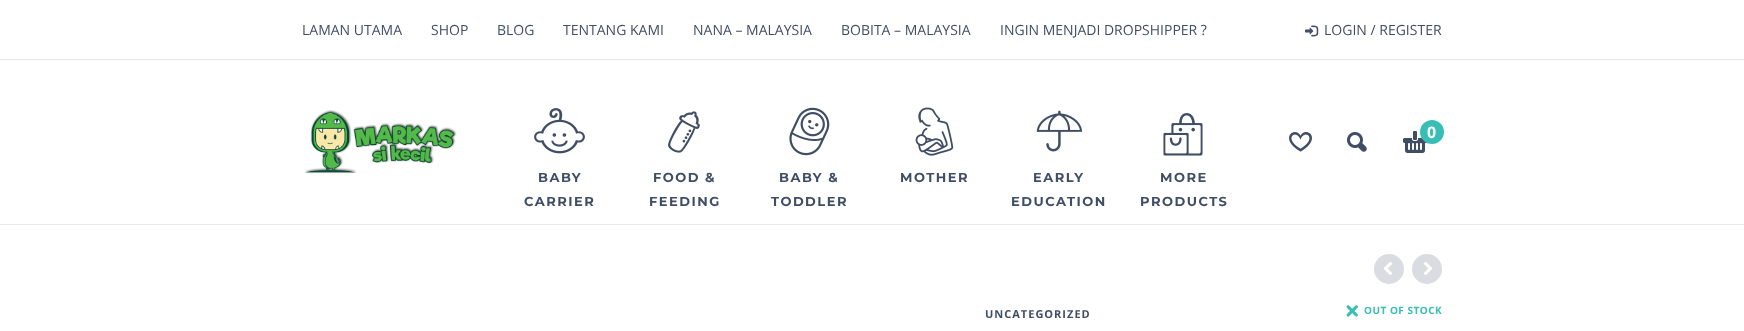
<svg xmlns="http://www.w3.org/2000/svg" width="1744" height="331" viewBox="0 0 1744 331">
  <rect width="100%" height="100%" fill="rgb(255,255,255)"/>
  <rect x="0" y="59" width="1744" height="1" fill="rgb(226,229,233)"/>
  <g font-family="Open Sans" font-size="14" fill="rgb(64,78,101)">
    <text x="302" y="35">LAMAN UTAMA</text>
    <text x="431" y="35">SHOP</text>
    <text x="497" y="35">BLOG</text>
    <text x="563" y="35">TENTANG KAMI</text>
    <text x="693" y="35">NANA – MALAYSIA</text>
    <text x="841" y="35">BOBITA – MALAYSIA</text>
    <text x="1000" y="35">INGIN MENJADI DROPSHIPPER ?</text>
  </g>
  <image x="1305" y="25" width="14" height="12" href="pic1.png"/>
  <text x="1324" y="35" font-family="Open Sans" font-size="14" fill="rgb(64,78,101)">LOGIN / REGISTER</text>
  <rect x="0" y="224" width="1744" height="1" fill="rgb(234,234,234)"/>
  <image x="305" y="110" width="152" height="64" href="pic2.png"/>
  <image x="1289" y="132" width="23" height="20" href="pic3.png"/>
  <image x="1347" y="132" width="20" height="20" href="pic4.png"/>
  <image x="1403" y="131" width="24" height="22" href="pic5.png"/>
  <circle cx="1432" cy="132" r="12" fill="rgb(55,191,182)"/>
  <text x="1427" y="138" font-family="Open Sans" font-size="16" font-weight="bold" fill="rgb(255,255,255)">0</text>
  <image x="534" y="108" width="51" height="46" href="pic6.png"/>
  <g font-family="Montserrat" font-size="13" font-weight="bold" letter-spacing="1.5" fill="rgb(64,78,101)">
    <text x="538" y="182">BABY</text>
    <text x="524" y="206">CARRIER</text>
  </g>
  <image x="668" y="111" width="32" height="42" href="pic7.png"/>
  <g font-family="Montserrat" font-size="13" font-weight="bold" letter-spacing="1.5" fill="rgb(64,78,101)">
    <text x="653" y="182">FOOD &amp;</text>
    <text x="649" y="206">FEEDING</text>
  </g>
  <image x="789" y="107" width="41" height="49" href="pic8.png"/>
  <g font-family="Montserrat" font-size="13" font-weight="bold" letter-spacing="1.5" fill="rgb(64,78,101)">
    <text x="779" y="182">BABY &amp;</text>
    <text x="771" y="206">TODDLER</text>
  </g>
  <image x="915" y="107" width="39" height="49" href="pic9.png"/>
  <text x="900" y="182" font-family="Montserrat" font-size="13" font-weight="bold" letter-spacing="1.5" fill="rgb(64,78,101)">MOTHER</text>
  <image x="1036" y="110" width="47" height="42" href="pic10.png"/>
  <g font-family="Montserrat" font-size="13" font-weight="bold" letter-spacing="1.5" fill="rgb(64,78,101)">
    <text x="1033" y="182">EARLY</text>
    <text x="1011" y="206">EDUCATION</text>
  </g>
  <image x="1163" y="113" width="40" height="43" href="pic11.png"/>
  <g font-family="Montserrat" font-size="13" font-weight="bold" letter-spacing="1.5" fill="rgb(64,78,101)">
    <text x="1160" y="182">MORE</text>
    <text x="1140" y="206">PRODUCTS</text>
  </g>
  <circle cx="1389" cy="269" r="15" fill="rgb(217,220,224)"/>
  <image x="1384" y="262" width="8" height="13" href="pic12.png"/>
  <circle cx="1427" cy="269" r="15" fill="rgb(217,220,224)"/>
  <image x="1424" y="262" width="8" height="13" href="pic13.png"/>
  <text x="985" y="318" font-family="Open Sans" font-size="11" font-weight="bold" letter-spacing="1" fill="rgb(64,78,101)">UNCATEGORIZED</text>
  <image x="1346" y="305" width="12" height="12" href="pic14.png"/>
  <text x="1364" y="314" font-family="Open Sans" font-size="10" font-weight="bold" letter-spacing="0.5" fill="rgb(55,191,182)">OUT OF STOCK</text>
</svg>
